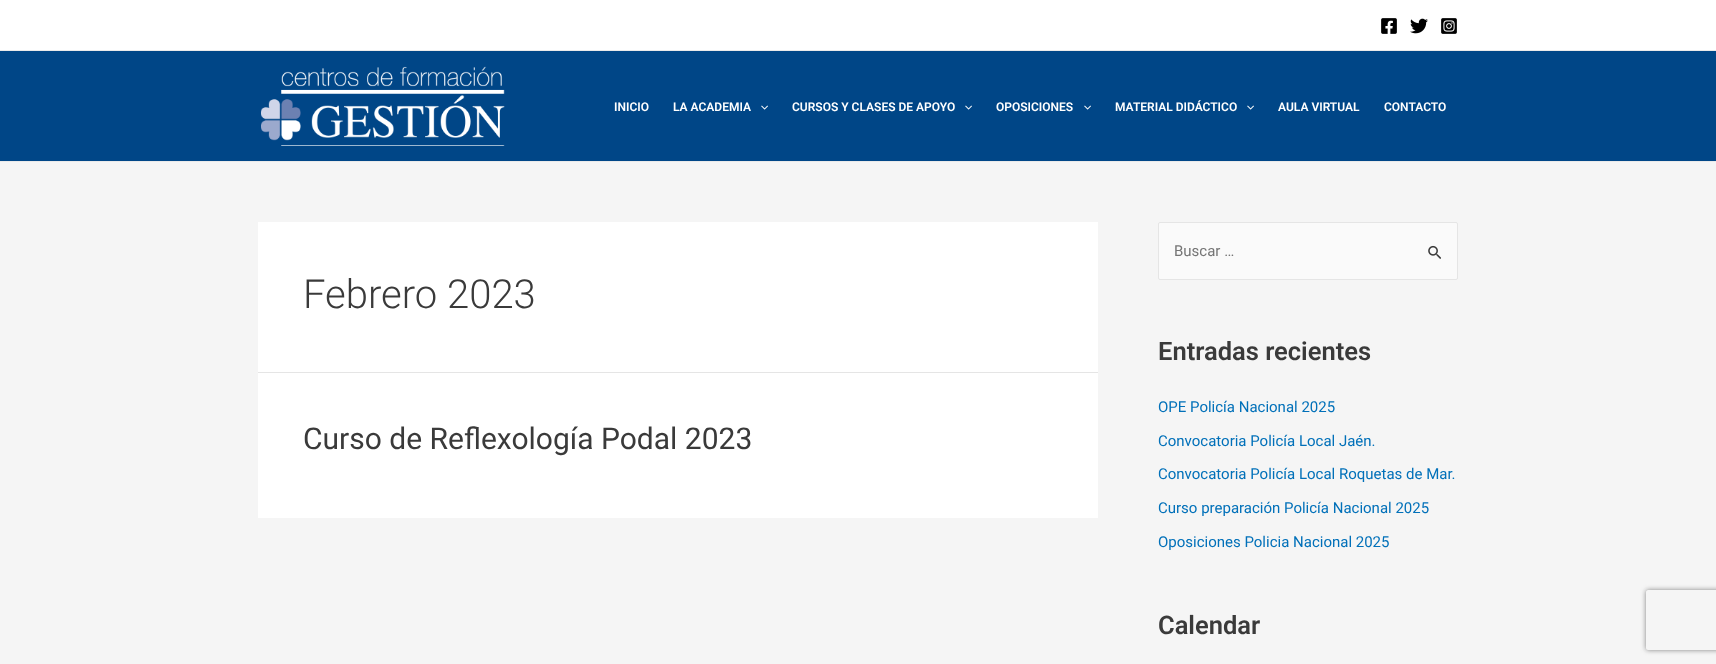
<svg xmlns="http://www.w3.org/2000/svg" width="1716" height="664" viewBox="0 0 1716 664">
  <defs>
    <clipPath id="clip1"><path d="M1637 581H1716V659H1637ZM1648 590H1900C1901 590 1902 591 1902 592V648C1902 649 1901 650 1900 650H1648C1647 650 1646 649 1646 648V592C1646 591 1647 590 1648 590Z" clip-rule="evenodd"/></clipPath>
  </defs>
  <rect width="100%" height="100%" fill="rgb(245,245,245)"/>
  <rect x="0" y="0" width="1716" height="50" fill="rgb(255,255,255)"/>
  <rect x="0" y="50" width="1716" height="1" fill="rgb(234,234,234)"/>
  <image x="1381" y="18" width="16" height="16" href="pic1.png"/>
  <image x="1410" y="18" width="18" height="16" href="pic2.png"/>
  <image x="1441" y="18" width="16" height="16" href="pic3.png"/>
  <rect x="0" y="51" width="1716" height="110" fill="rgb(0,70,135)"/>
  <rect x="0" y="161" width="1716" height="1" fill="rgb(234,234,234)"/>
  <image x="261" y="66" width="244" height="80" href="pic4.png"/>
  <g font-family="Roboto" font-size="12" font-weight="600" fill="rgb(255,255,255)">
    <text x="614" y="111">INICIO</text>
    <text x="673" y="111">LA ACADEMIA</text>
  </g>
  <image x="761" y="105" width="7" height="5" href="pic5.png"/>
  <text x="792" y="111" font-family="Roboto" font-size="12" font-weight="600" fill="rgb(255,255,255)">CURSOS Y CLASES DE APOYO</text>
  <image x="965" y="105" width="7" height="5" href="pic5.png"/>
  <text x="996" y="111" font-family="Roboto" font-size="12" font-weight="600" fill="rgb(255,255,255)">OPOSICIONES</text>
  <image x="1084" y="105" width="7" height="5" href="pic5.png"/>
  <text x="1115" y="111" font-family="Roboto" font-size="12" font-weight="600" fill="rgb(255,255,255)">MATERIAL DIDÁCTICO</text>
  <image x="1247" y="105" width="7" height="5" href="pic5.png"/>
  <g font-family="Roboto" font-size="12" font-weight="600" fill="rgb(255,255,255)">
    <text x="1278" y="111">AULA VIRTUAL</text>
    <text x="1384" y="111">CONTACTO</text>
  </g>
  <rect x="258" y="222" width="840" height="150" fill="rgb(255,255,255)"/>
  <rect x="258" y="372" width="840" height="1" fill="rgb(229,229,229)"/>
  <text x="303" y="308" font-family="Roboto" font-size="40" font-weight="300" fill="rgb(58,58,58)">Febrero 2023</text>
  <rect x="258" y="373" width="840" height="145" fill="rgb(255,255,255)"/>
  <text x="303" y="449" font-family="Roboto" font-size="30" fill="rgb(58,58,58)">Curso de Reflexología Podal 2023</text>
  <rect x="1158.5" y="222.5" width="299" height="57" rx="1.5" fill="rgb(250,250,250)" stroke="rgb(229,229,229)"/>
  <text x="1174" y="256" font-family="Roboto" font-size="15" fill="rgb(117,117,117)">Buscar …</text>
  <image x="1428" y="245" width="13" height="14" href="pic6.png"/>
  <text x="1158" y="360" font-family="Roboto" font-size="25.5" font-weight="600" fill="rgb(58,58,58)">Entradas recientes</text>
  <g font-family="Roboto" font-size="15" fill="rgb(1,112,185)">
    <text x="1158" y="412">OPE Policía Nacional 2025</text>
    <text x="1158" y="446">Convocatoria Policía Local Jaén.</text>
    <text x="1158" y="479">Convocatoria Policía Local Roquetas de Mar.</text>
    <text x="1158" y="513">Curso preparación Policía Nacional 2025</text>
    <text x="1158" y="547">Oposiciones Policia Nacional 2025</text>
  </g>
  <text x="1158" y="634" font-family="Roboto" font-size="25.5" font-weight="600" fill="rgb(58,58,58)">Calendar</text>
  <g clip-path="url(#clip1)">
    <rect x="1646" y="590" width="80" height="60" rx="2" fill="rgb(128,128,128)" filter="blur(2.5px)"/>
  </g>
</svg>
